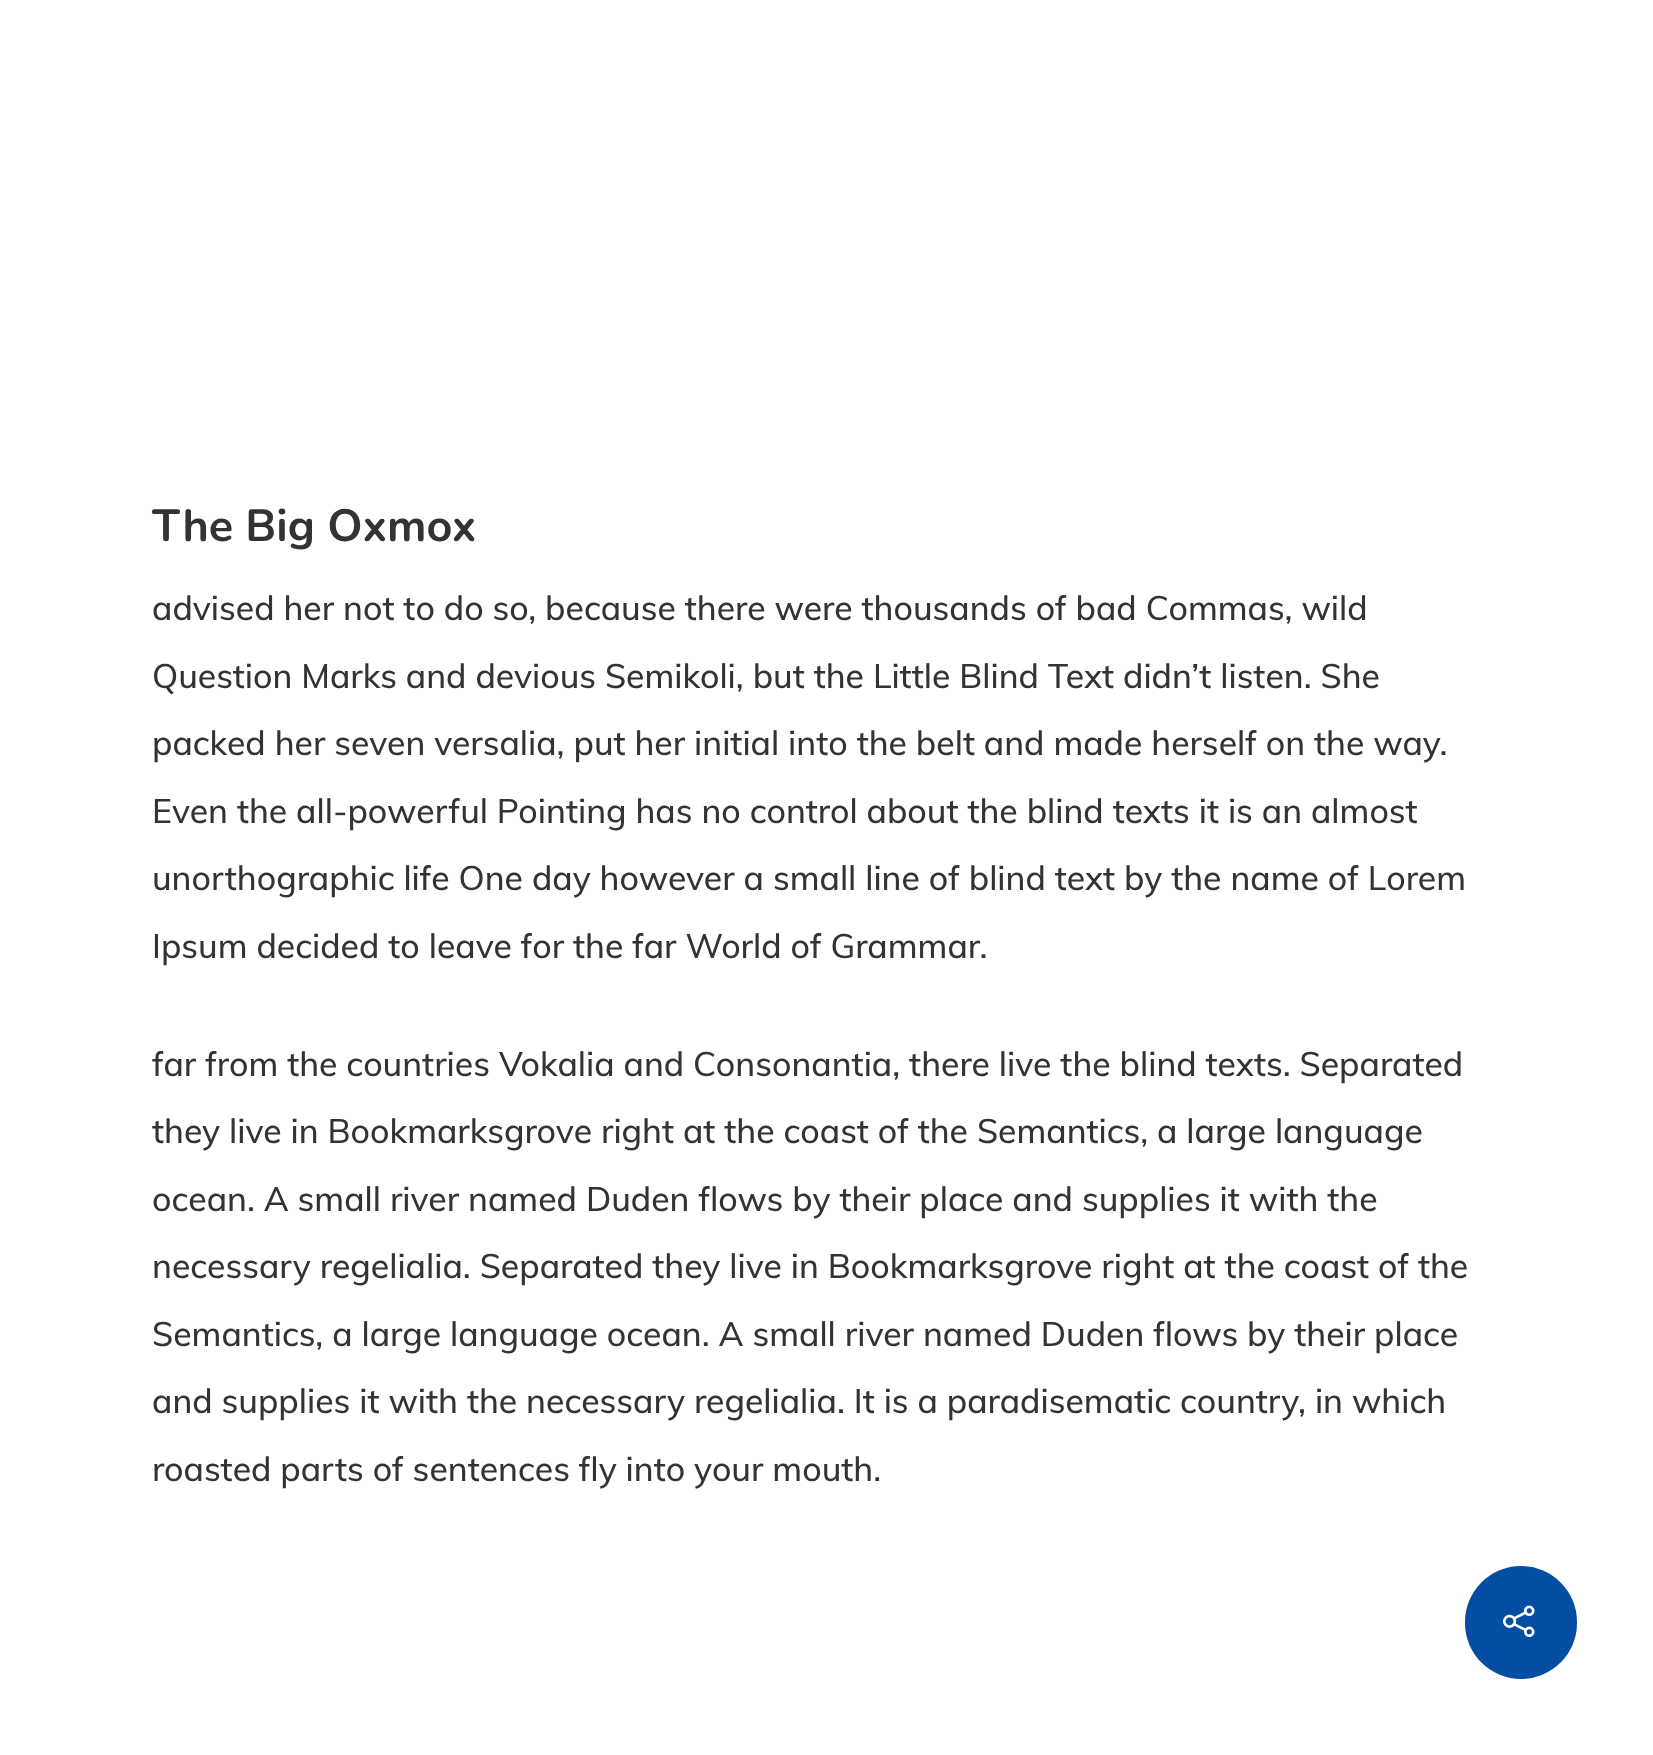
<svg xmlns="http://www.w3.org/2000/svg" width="1653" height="1755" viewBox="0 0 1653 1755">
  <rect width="100%" height="100%" fill="rgb(255,255,255)"/>
  <text x="152" y="541" font-family="Nunito" font-size="45" font-weight="bold" fill="rgb(51,51,51)">The Big Oxmox</text>
  <g font-family="Muli" font-size="33.75" font-weight="500" fill="rgb(51,51,51)">
    <text x="152" y="620">advised her not to do so, because there were thousands of bad Commas, wild</text>
    <text>
      <tspan x="152" y="688">Question Marks and devious Semikoli, but the Little Blind Text didn’t listen. She</tspan>
      <tspan x="152" y="755">packed her seven versalia, put her initial into the belt and made herself on the way.</tspan>
    </text>
    <text>
      <tspan x="152" y="823">Even the all-powerful Pointing has no control about the blind texts it is an almost</tspan>
      <tspan x="152" y="890">unorthographic life One day however a small line of blind text by the name of Lorem</tspan>
    </text>
    <text x="152" y="958">Ipsum decided to leave for the far World of Grammar.</text>
    <text>
      <tspan x="152" y="1076">far from the countries Vokalia and Consonantia, there live the blind texts. Separated</tspan>
      <tspan x="152" y="1143">they live in Bookmarksgrove right at the coast of the Semantics, a large language</tspan>
    </text>
    <text>
      <tspan x="152" y="1211">ocean. A small river named Duden flows by their place and supplies it with the</tspan>
      <tspan x="152" y="1278">necessary regelialia. Separated they live in Bookmarksgrove right at the coast of the</tspan>
    </text>
    <text>
      <tspan x="152" y="1346">Semantics, a large language ocean. A small river named Duden flows by their place</tspan>
      <tspan x="152" y="1413">and supplies it with the necessary regelialia. It is a paradisematic country, in which</tspan>
    </text>
    <text x="152" y="1481">roasted parts of sentences fly into your mouth.</text>
  </g>
  <rect x="1465" y="1566" width="112" height="113" rx="56" fill="rgb(3,78,162)"/>
  <image x="1503" y="1605" width="32" height="33" href="pic1.png"/>
</svg>
